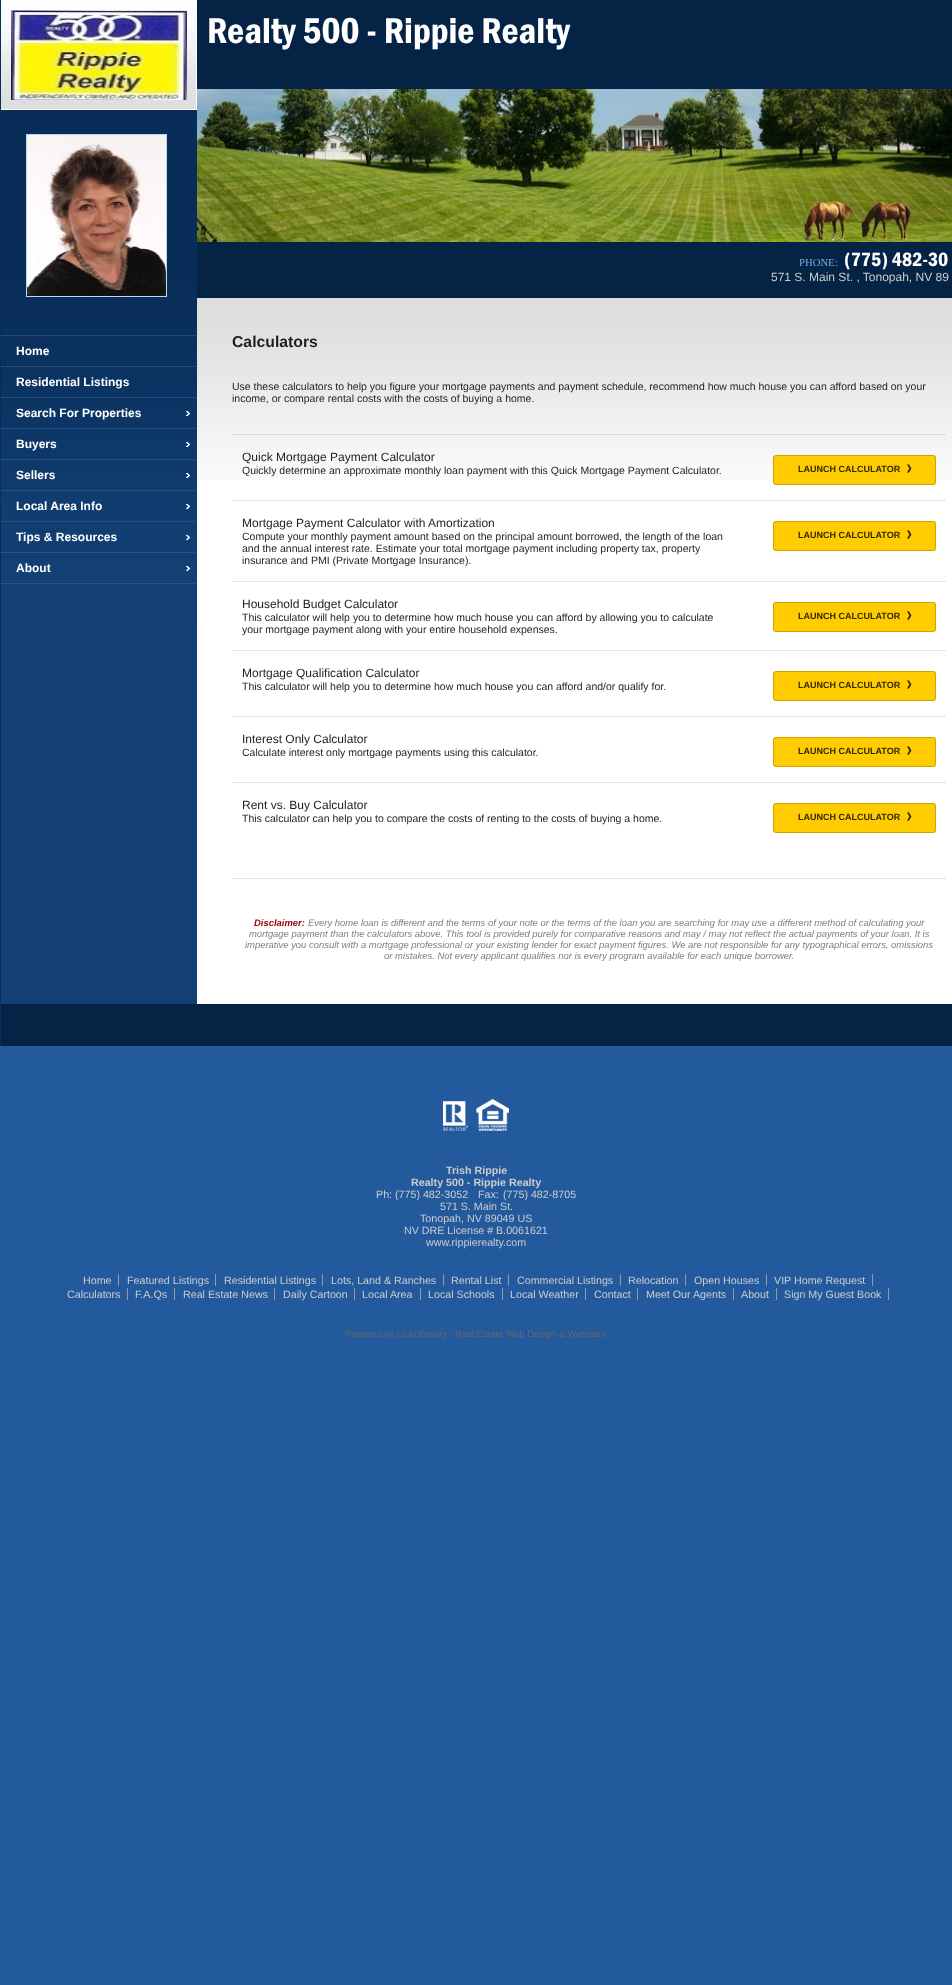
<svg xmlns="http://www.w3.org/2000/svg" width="952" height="1985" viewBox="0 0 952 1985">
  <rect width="100%" height="100%" fill="rgb(35,90,158)"/>
  <rect x="0" y="0" width="1" height="1046" fill="rgb(8,45,88)"/>
  <image x="1" y="480" width="951" height="524" href="pic1.png"/>
  <image x="1" y="110" width="196" height="514" href="pic2.png"/>
  <image x="1" y="0" width="196" height="110" href="pic3.png"/>
  <image x="11" y="10" width="176" height="90" href="pic4.png"/>
  <rect x="26.5" y="134.5" width="140" height="162" fill="none" stroke="rgb(192,212,235)"/>
  <image x="27" y="135" width="139" height="161" href="pic5.png"/>
  <path d="M1 335.5H197" fill="none" stroke="rgb(52,103,161)" stroke-dasharray="1 1"/>
  <path d="M1 366.5H197" fill="none" stroke="rgb(52,103,161)" stroke-dasharray="1 1"/>
  <text x="16" y="355" font-family="Liberation Sans" font-size="12" font-weight="bold" fill="rgb(255,255,255)">Home</text>
  <path d="M1 397.5H197" fill="none" stroke="rgb(52,103,161)" stroke-dasharray="1 1"/>
  <text x="16" y="386" font-family="Liberation Sans" font-size="12" font-weight="bold" fill="rgb(255,255,255)">Residential Listings</text>
  <image x="185" y="411" width="6" height="5" href="pic6.png"/>
  <path d="M1 428.5H197" fill="none" stroke="rgb(52,103,161)" stroke-dasharray="1 1"/>
  <text x="16" y="417" font-family="Liberation Sans" font-size="12" font-weight="bold" fill="rgb(255,255,255)">Search For Properties</text>
  <image x="185" y="442" width="6" height="5" href="pic7.png"/>
  <path d="M1 459.5H197" fill="none" stroke="rgb(52,103,161)" stroke-dasharray="1 1"/>
  <text x="16" y="448" font-family="Liberation Sans" font-size="12" font-weight="bold" fill="rgb(255,255,255)">Buyers</text>
  <image x="185" y="473" width="6" height="5" href="pic8.png"/>
  <path d="M1 490.5H197" fill="none" stroke="rgb(52,103,161)" stroke-dasharray="1 1"/>
  <text x="16" y="479" font-family="Liberation Sans" font-size="12" font-weight="bold" fill="rgb(255,255,255)">Sellers</text>
  <image x="185" y="504" width="6" height="5" href="pic9.png"/>
  <path d="M1 521.5H197" fill="none" stroke="rgb(52,103,161)" stroke-dasharray="1 1"/>
  <text x="16" y="510" font-family="Liberation Sans" font-size="12" font-weight="bold" fill="rgb(255,255,255)">Local Area Info</text>
  <image x="185" y="535" width="6" height="5" href="pic10.png"/>
  <path d="M1 552.5H197" fill="none" stroke="rgb(52,103,161)" stroke-dasharray="1 1"/>
  <text x="16" y="541" font-family="Liberation Sans" font-size="12" font-weight="bold" fill="rgb(255,255,255)">Tips &amp; Resources</text>
  <image x="185" y="566" width="6" height="5" href="pic11.png"/>
  <path d="M1 583.5H197" fill="none" stroke="rgb(52,103,161)" stroke-dasharray="1 1"/>
  <text x="16" y="572" font-family="Liberation Sans" font-size="12" font-weight="bold" fill="rgb(255,255,255)">About</text>
  <image x="197" y="298" width="755" height="182" href="pic12.png"/>
  <rect x="197" y="0" width="755" height="89" fill="rgb(5,35,69)"/>
  <text x="207" y="43" font-family="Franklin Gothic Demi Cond" font-size="37.25" fill="rgb(255,255,255)">Realty 500 - Rippie Realty</text>
  <image x="197" y="89" width="755" height="153" href="pic13.png"/>
  <rect x="197" y="242" width="755" height="56" fill="rgb(5,35,69)"/>
  <text x="799" y="266" font-family="Liberation Serif" font-size="10.7" fill="rgb(119,171,229)">PHONE:</text>
  <text x="844" y="266" font-family="Franklin Gothic Demi Cond" font-size="20" fill="rgb(255,255,255)">(775) 482-30</text>
  <text x="771" y="281" font-family="Liberation Sans" font-size="12" fill="rgb(204,204,204)">571 S. Main St. , Tonopah, NV 89</text>
  <text x="232" y="347" font-family="Liberation Sans" font-size="15.75" font-weight="bold" fill="rgb(30,30,30)">Calculators</text>
  <g font-family="Liberation Sans" font-size="10.5" fill="rgb(30,30,30)">
    <text>
      <tspan x="232" y="390">Use these calculators to help you figure your mortgage payments and payment schedule, recommend how much house you can afford based on your</tspan>
      <tspan x="232" y="402">income, or compare rental costs with the costs of buying a home.</tspan>
    </text>
  </g>
  <path d="M232 434.5H946" fill="none" stroke="rgb(194,194,194)" stroke-dasharray="1 1"/>
  <text x="242" y="461" font-family="Liberation Sans" font-size="12" fill="rgb(30,30,30)">Quick Mortgage Payment Calculator</text>
  <text x="242" y="474" font-family="Liberation Sans" font-size="10.5" fill="rgb(30,30,30)">Quickly determine an approximate monthly loan payment with this Quick Mortgage Payment Calculator.</text>
  <rect x="773" y="455" width="163" height="30" rx="3" fill="rgb(255,204,0)"/>
  <rect x="773.5" y="455.5" width="162" height="29" rx="2.5" fill="none" stroke="rgba(0,0,0,0.2)"/>
  <text x="798" y="472" font-family="Liberation Sans" font-size="9" font-weight="bold" fill="rgb(51,41,0)">LAUNCH CALCULATOR</text>
  <image x="907" y="464" width="5" height="9" href="pic14.png"/>
  <path d="M232 500.5H946" fill="none" stroke="rgb(204,204,204)" stroke-dasharray="1 1"/>
  <text x="242" y="527" font-family="Liberation Sans" font-size="12" fill="rgb(30,30,30)">Mortgage Payment Calculator with Amortization</text>
  <g font-family="Liberation Sans" font-size="10.5" fill="rgb(30,30,30)">
    <text>
      <tspan x="242" y="540">Compute your monthly payment amount based on the principal amount borrowed, the length of the loan</tspan>
      <tspan x="242" y="552">and the annual interest rate. Estimate your total mortgage payment including property tax, property</tspan>
      <tspan x="242" y="564">insurance and PMI (Private Mortgage Insurance).</tspan>
    </text>
  </g>
  <rect x="773" y="521" width="163" height="30" rx="3" fill="rgb(255,204,0)"/>
  <rect x="773.5" y="521.5" width="162" height="29" rx="2.5" fill="none" stroke="rgba(0,0,0,0.2)"/>
  <text x="798" y="538" font-family="Liberation Sans" font-size="9" font-weight="bold" fill="rgb(51,41,0)">LAUNCH CALCULATOR</text>
  <image x="907" y="530" width="5" height="9" href="pic14.png"/>
  <path d="M232 581.5H946" fill="none" stroke="rgb(204,204,204)" stroke-dasharray="1 1"/>
  <text x="242" y="608" font-family="Liberation Sans" font-size="12" fill="rgb(30,30,30)">Household Budget Calculator</text>
  <g font-family="Liberation Sans" font-size="10.5" fill="rgb(30,30,30)">
    <text>
      <tspan x="242" y="621">This calculator will help you to determine how much house you can afford by allowing you to calculate</tspan>
      <tspan x="242" y="633">your mortgage payment along with your entire household expenses.</tspan>
    </text>
  </g>
  <rect x="773" y="602" width="163" height="30" rx="3" fill="rgb(255,204,0)"/>
  <rect x="773.5" y="602.5" width="162" height="29" rx="2.5" fill="none" stroke="rgba(0,0,0,0.2)"/>
  <text x="798" y="619" font-family="Liberation Sans" font-size="9" font-weight="bold" fill="rgb(51,41,0)">LAUNCH CALCULATOR</text>
  <image x="907" y="611" width="5" height="9" href="pic14.png"/>
  <path d="M232 650.5H946" fill="none" stroke="rgb(204,204,204)" stroke-dasharray="1 1"/>
  <text x="242" y="677" font-family="Liberation Sans" font-size="12" fill="rgb(30,30,30)">Mortgage Qualification Calculator</text>
  <text x="242" y="690" font-family="Liberation Sans" font-size="10.5" fill="rgb(30,30,30)">This calculator will help you to determine how much house you can afford and/or qualify for.</text>
  <rect x="773" y="671" width="163" height="30" rx="3" fill="rgb(255,204,0)"/>
  <rect x="773.5" y="671.5" width="162" height="29" rx="2.5" fill="none" stroke="rgba(0,0,0,0.2)"/>
  <text x="798" y="688" font-family="Liberation Sans" font-size="9" font-weight="bold" fill="rgb(51,41,0)">LAUNCH CALCULATOR</text>
  <image x="907" y="680" width="5" height="9" href="pic14.png"/>
  <path d="M232 716.5H946" fill="none" stroke="rgb(204,204,204)" stroke-dasharray="1 1"/>
  <text x="242" y="743" font-family="Liberation Sans" font-size="12" fill="rgb(30,30,30)">Interest Only Calculator</text>
  <text x="242" y="756" font-family="Liberation Sans" font-size="10.5" fill="rgb(30,30,30)">Calculate interest only mortgage payments using this calculator.</text>
  <rect x="773" y="737" width="163" height="30" rx="3" fill="rgb(255,204,0)"/>
  <rect x="773.5" y="737.5" width="162" height="29" rx="2.5" fill="none" stroke="rgba(0,0,0,0.2)"/>
  <text x="798" y="754" font-family="Liberation Sans" font-size="9" font-weight="bold" fill="rgb(51,41,0)">LAUNCH CALCULATOR</text>
  <image x="907" y="746" width="5" height="9" href="pic14.png"/>
  <path d="M232 782.5H946" fill="none" stroke="rgb(204,204,204)" stroke-dasharray="1 1"/>
  <text x="242" y="809" font-family="Liberation Sans" font-size="12" fill="rgb(30,30,30)">Rent vs. Buy Calculator</text>
  <text x="242" y="822" font-family="Liberation Sans" font-size="10.5" fill="rgb(30,30,30)">This calculator can help you to compare the costs of renting to the costs of buying a home.</text>
  <rect x="773" y="803" width="163" height="30" rx="3" fill="rgb(255,204,0)"/>
  <rect x="773.5" y="803.5" width="162" height="29" rx="2.5" fill="none" stroke="rgba(0,0,0,0.2)"/>
  <text x="798" y="820" font-family="Liberation Sans" font-size="9" font-weight="bold" fill="rgb(51,41,0)">LAUNCH CALCULATOR</text>
  <image x="907" y="812" width="5" height="9" href="pic14.png"/>
  <path d="M232 878.5H946" fill="none" stroke="rgb(204,204,204)" stroke-dasharray="1 1"/>
  <text x="254" y="926" font-family="Liberation Sans" font-size="9.45" font-weight="bold" font-style="italic" fill="rgb(157,0,0)">Disclaimer:</text>
  <g font-family="Liberation Sans" font-size="9.45" font-style="italic" fill="rgb(128,128,128)">
    <text x="308" y="926">Every home loan is different and the terms of your note or the terms of the loan you are searching for may use a different method of calculating your</text>
    <text x="249" y="937">mortgage payment than the calculators above. This tool is provided purely for comparative reasons and may / may not reflect the actual payments of your loan. It is</text>
    <text x="245" y="948">imperative you consult with a mortgage professional or your existing lender for exact payment figures. We are not responsible for any typographical errors, omissions</text>
    <text x="384" y="959">or mistakes. Not every applicant qualifies nor is every program available for each unique borrower.</text>
  </g>
  <rect x="1" y="1004" width="951" height="42" fill="rgb(5,35,69)"/>
  <image x="443" y="1101" width="25" height="30" href="pic15.png"/>
  <image x="476" y="1099" width="33" height="32" href="pic16.png"/>
  <g font-family="Liberation Sans" font-size="10.7" font-weight="bold" fill="rgb(204,204,204)">
    <text x="446" y="1174">Trish Rippie</text>
    <text x="411" y="1186">Realty 500 - Rippie Realty</text>
  </g>
  <g font-family="Liberation Sans" font-size="10.7" fill="rgb(204,204,204)">
    <text x="376" y="1198">Ph: (775) 482-3052</text>
    <text x="478" y="1198">Fax:</text>
    <text x="503" y="1198">(775) 482-8705</text>
    <text x="440" y="1210">571 S. Main St.</text>
    <text x="420" y="1222">Tonopah, NV 89049 US</text>
    <text x="404" y="1234">NV DRE License # B.0061621</text>
    <text x="426" y="1246">www.rippierealty.com</text>
    <text x="83" y="1284">Home</text>
  </g>
  <rect x="118" y="1274" width="1" height="12" fill="rgb(153,153,153)"/>
  <text x="127" y="1284" font-family="Liberation Sans" font-size="10.7" fill="rgb(204,204,204)">Featured Listings</text>
  <rect x="215" y="1274" width="1" height="12" fill="rgb(153,153,153)"/>
  <text x="224" y="1284" font-family="Liberation Sans" font-size="10.7" fill="rgb(204,204,204)">Residential Listings</text>
  <rect x="322" y="1274" width="1" height="12" fill="rgb(153,153,153)"/>
  <text x="331" y="1284" font-family="Liberation Sans" font-size="10.7" fill="rgb(204,204,204)">Lots, Land &amp; Ranches</text>
  <rect x="443" y="1274" width="1" height="12" fill="rgb(153,153,153)"/>
  <text x="451" y="1284" font-family="Liberation Sans" font-size="10.7" fill="rgb(204,204,204)">Rental List</text>
  <rect x="508" y="1274" width="1" height="12" fill="rgb(153,153,153)"/>
  <text x="517" y="1284" font-family="Liberation Sans" font-size="10.7" fill="rgb(204,204,204)">Commercial Listings</text>
  <rect x="620" y="1274" width="1" height="12" fill="rgb(153,153,153)"/>
  <text x="628" y="1284" font-family="Liberation Sans" font-size="10.7" fill="rgb(204,204,204)">Relocation</text>
  <rect x="685" y="1274" width="1" height="12" fill="rgb(153,153,153)"/>
  <text x="694" y="1284" font-family="Liberation Sans" font-size="10.7" fill="rgb(204,204,204)">Open Houses</text>
  <rect x="766" y="1274" width="1" height="12" fill="rgb(153,153,153)"/>
  <text x="774" y="1284" font-family="Liberation Sans" font-size="10.7" fill="rgb(204,204,204)">VIP Home Request</text>
  <rect x="872" y="1274" width="1" height="12" fill="rgb(153,153,153)"/>
  <text x="67" y="1298" font-family="Liberation Sans" font-size="10.7" fill="rgb(204,204,204)">Calculators</text>
  <rect x="127" y="1288" width="1" height="12" fill="rgb(153,153,153)"/>
  <text x="135" y="1298" font-family="Liberation Sans" font-size="10.7" fill="rgb(204,204,204)">F.A.Qs</text>
  <rect x="174" y="1288" width="1" height="12" fill="rgb(153,153,153)"/>
  <text x="183" y="1298" font-family="Liberation Sans" font-size="10.7" fill="rgb(204,204,204)">Real Estate News</text>
  <rect x="274" y="1288" width="1" height="12" fill="rgb(153,153,153)"/>
  <text x="283" y="1298" font-family="Liberation Sans" font-size="10.7" fill="rgb(204,204,204)">Daily Cartoon</text>
  <rect x="354" y="1288" width="1" height="12" fill="rgb(153,153,153)"/>
  <text x="362" y="1298" font-family="Liberation Sans" font-size="10.7" fill="rgb(204,204,204)">Local Area</text>
  <rect x="420" y="1288" width="1" height="12" fill="rgb(153,153,153)"/>
  <text x="428" y="1298" font-family="Liberation Sans" font-size="10.7" fill="rgb(204,204,204)">Local Schools</text>
  <rect x="502" y="1288" width="1" height="12" fill="rgb(153,153,153)"/>
  <text x="510" y="1298" font-family="Liberation Sans" font-size="10.7" fill="rgb(204,204,204)">Local Weather</text>
  <rect x="585" y="1288" width="1" height="12" fill="rgb(153,153,153)"/>
  <text x="594" y="1298" font-family="Liberation Sans" font-size="10.7" fill="rgb(204,204,204)">Contact</text>
  <rect x="637" y="1288" width="1" height="12" fill="rgb(153,153,153)"/>
  <text x="646" y="1298" font-family="Liberation Sans" font-size="10.7" fill="rgb(204,204,204)">Meet Our Agents</text>
  <rect x="733" y="1288" width="1" height="12" fill="rgb(153,153,153)"/>
  <text x="741" y="1298" font-family="Liberation Sans" font-size="10.7" fill="rgb(204,204,204)">About</text>
  <rect x="776" y="1288" width="1" height="12" fill="rgb(153,153,153)"/>
  <text x="784" y="1298" font-family="Liberation Sans" font-size="10.7" fill="rgb(204,204,204)">Sign My Guest Book</text>
  <rect x="888" y="1288" width="1" height="12" fill="rgb(153,153,153)"/>
  <text x="345" y="1337" font-family="Liberation Sans" font-size="9.3" fill="rgb(102,102,102)">Powered by LinkURealty - Real Estate Web Design &amp; Websites</text>
</svg>
